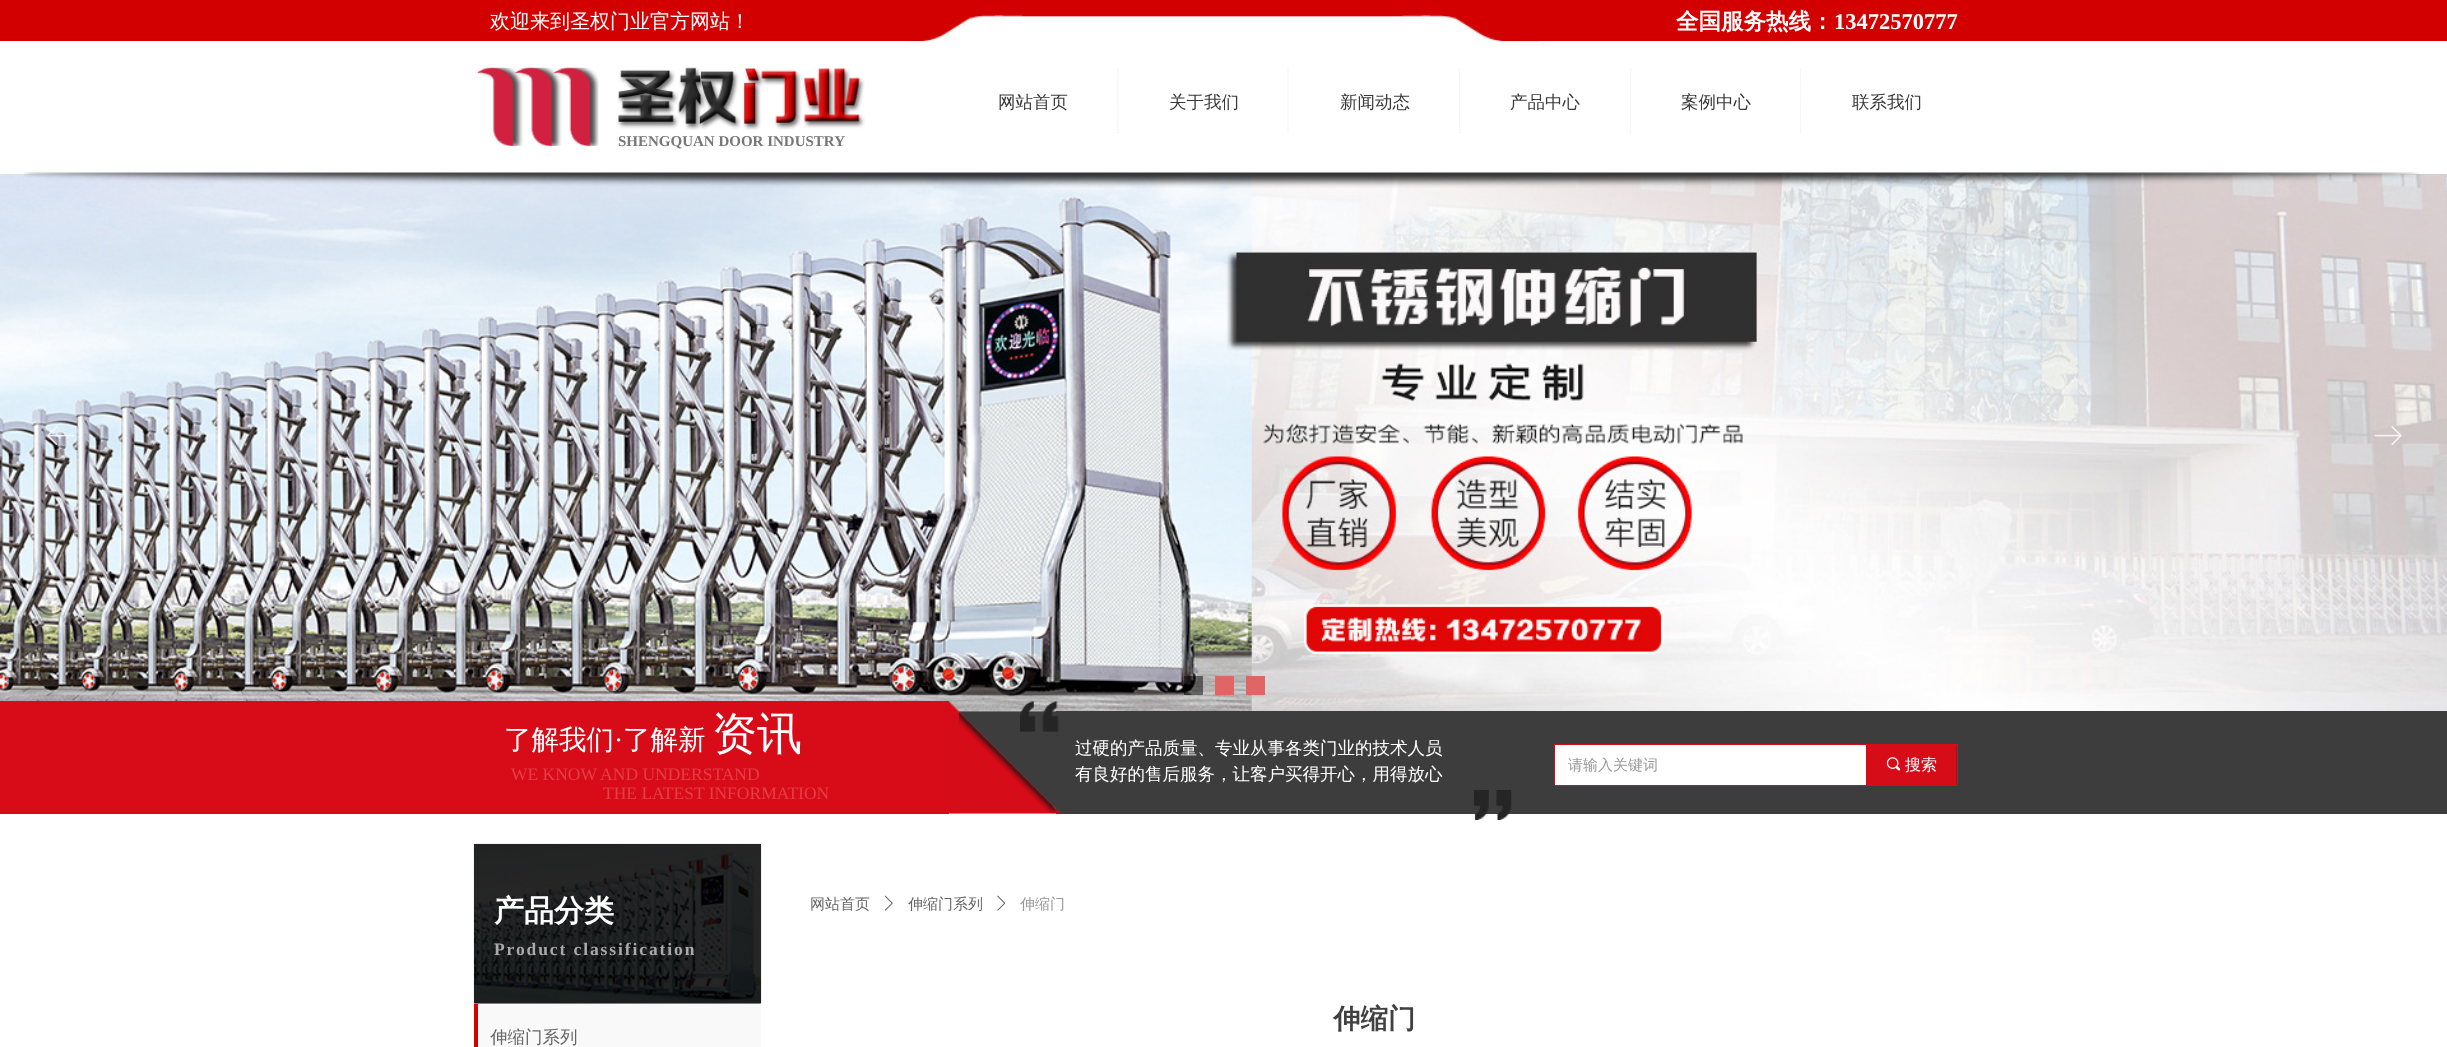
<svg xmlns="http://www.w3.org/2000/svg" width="2447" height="1047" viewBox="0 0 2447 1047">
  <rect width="100%" height="100%" fill="rgb(255,255,255)"/>
  <rect x="0" y="0" width="2447" height="41" fill="rgb(210,0,1)"/>
  <text x="490" y="28" font-family="WenQuanYi Zen Hei" font-size="20" font-weight="500" fill="rgb(255,255,255)">欢迎来到圣权门业官方网站！</text>
  <image x="908" y="13" width="631" height="29" href="pic1.png"/>
  <text x="1676" y="29" font-family="WenQuanYi Zen Hei" font-size="22.5" font-weight="bold" fill="rgb(255,255,255)">全国服务热线：</text>
  <text x="1834" y="29" font-family="Liberation Serif" font-size="22.5" font-weight="bold" fill="rgb(255,255,255)">13472570777</text>
  <image x="477" y="67" width="122" height="80" href="pic2.png"/>
  <image x="617" y="67" width="248" height="63" href="pic3.png"/>
  <text x="998" y="108" font-family="WenQuanYi Zen Hei" font-size="17.5" font-weight="500" fill="rgb(56,56,56)">网站首页</text>
  <path d="M1118 69V134" fill="none" stroke="rgb(238,238,238)" stroke-width="1.2" stroke-dasharray="1.25 1.25"/>
  <text x="1169" y="108" font-family="WenQuanYi Zen Hei" font-size="17.5" font-weight="500" fill="rgb(56,56,56)">关于我们</text>
  <path d="M1288 69V134" fill="none" stroke="rgb(238,238,238)" stroke-width="1.2" stroke-dasharray="1.25 1.25"/>
  <text x="1340" y="108" font-family="WenQuanYi Zen Hei" font-size="17.5" font-weight="500" fill="rgb(56,56,56)">新闻动态</text>
  <path d="M1459.5 69V134" fill="none" stroke="rgb(238,238,238)" stroke-width="1.2" stroke-dasharray="1.25 1.25"/>
  <text x="1510" y="108" font-family="WenQuanYi Zen Hei" font-size="17.5" font-weight="500" fill="rgb(56,56,56)">产品中心</text>
  <path d="M1630.5 69V134" fill="none" stroke="rgb(238,238,238)" stroke-width="1.2" stroke-dasharray="1.25 1.25"/>
  <text x="1681" y="108" font-family="WenQuanYi Zen Hei" font-size="17.5" font-weight="500" fill="rgb(56,56,56)">案例中心</text>
  <path d="M1800.5 69V134" fill="none" stroke="rgb(238,238,238)" stroke-width="1.2" stroke-dasharray="1.25 1.25"/>
  <text x="1852" y="108" font-family="WenQuanYi Zen Hei" font-size="17.5" font-weight="500" fill="rgb(56,56,56)">联系我们</text>
  <text x="618" y="146" font-family="Liberation Serif" font-size="15" font-weight="bold" fill="rgb(119,119,119)">SHENGQUAN DOOR INDUSTRY</text>
  <image x="0" y="173" width="2447" height="542" href="pic5.png"/>
  <image x="24" y="172" width="2395" height="16" href="pic4.png"/>
  <image x="47" y="426" width="27" height="20" href="pic6.png"/>
  <image x="2374" y="426" width="28" height="19" href="pic7.png"/>
  <rect x="1184" y="676" width="19" height="19" fill="rgba(0,0,0,0.5)"/>
  <rect x="1215" y="676" width="19" height="19" fill="rgb(224,102,102)"/>
  <rect x="1246" y="676" width="19" height="19" fill="rgb(224,102,102)"/>
  <rect x="0" y="701" width="949" height="113" fill="rgb(216,12,24)"/>
  <rect x="1056" y="711" width="1391" height="103" fill="rgb(61,61,61)"/>
  <image x="949" y="701" width="112" height="113" href="pic8.png"/>
  <image x="958" y="711" width="103" height="103" href="pic10.png"/>
  <image x="1020" y="701" width="39" height="31" href="pic9.png"/>
  <text x="504" y="749" font-family="WenQuanYi Zen Hei" font-size="27.5" font-weight="500" fill="rgb(255,255,255)">了解我们</text>
  <text x="614" y="749" font-family="Liberation Serif" font-size="27.5" fill="rgb(255,255,255)">·</text>
  <text x="623" y="749" font-family="WenQuanYi Zen Hei" font-size="27.5" font-weight="500" fill="rgb(255,255,255)">了解新</text>
  <text x="712" y="749" font-family="WenQuanYi Zen Hei" font-size="45" font-weight="500" fill="rgb(255,255,255)">资讯</text>
  <g font-family="WenQuanYi Zen Hei" font-size="17.5" font-weight="500" fill="rgb(255,255,255)">
    <text>
      <tspan x="1075" y="754">过硬的产品质量、专业从事各类门业的技术人员</tspan>
      <tspan x="1075" y="780">有良好的售后服务，让客户买得开心，用得放心</tspan>
    </text>
  </g>
  <rect x="1554.5" y="744.5" width="403" height="41" fill="none" stroke="rgb(215,12,25)"/>
  <rect x="1555" y="745" width="311" height="40" fill="rgb(255,255,255)"/>
  <text x="1568" y="770" font-family="WenQuanYi Zen Hei" font-size="15" font-weight="500" fill="rgb(153,153,153)">请输入关键词</text>
  <rect x="1866" y="745" width="90" height="40" fill="rgb(215,12,25)"/>
  <image x="1886" y="757" width="15" height="14" href="pic11.png"/>
  <text x="1905" y="770" font-family="WenQuanYi Zen Hei" font-size="16" font-weight="500" fill="rgb(255,255,255)">搜索</text>
  <g font-family="Liberation Serif" font-size="17.5" fill="rgb(228,62,72)">
    <text x="511" y="780">WE KNOW AND UNDERSTAND</text>
    <text x="603" y="799">THE LATEST INFORMATION</text>
  </g>
  <image x="1474" y="790" width="38" height="30" href="pic12.png"/>
  <image x="473" y="843" width="289" height="161" href="pic13.png"/>
  <text x="494" y="921" font-family="WenQuanYi Zen Hei" font-size="30" font-weight="bold" fill="rgb(255,255,255)">产品分类</text>
  <text x="494" y="955" font-family="Liberation Serif" font-size="17.5" font-weight="bold" letter-spacing="1.9" fill="rgb(170,170,170)">Product classification</text>
  <rect x="474" y="1004" width="4" height="43" fill="rgb(210,0,1)"/>
  <rect x="478" y="1004" width="283" height="43" fill="rgb(249,249,249)"/>
  <text x="490" y="1043" font-family="WenQuanYi Zen Hei" font-size="17.5" font-weight="500" fill="rgb(102,102,102)">伸缩门系列</text>
  <text x="810" y="909" font-family="WenQuanYi Zen Hei" font-size="15" font-weight="500" fill="rgb(102,102,102)">网站首页</text>
  <image x="884" y="895" width="9" height="16" href="pic14.png"/>
  <text x="908" y="909" font-family="WenQuanYi Zen Hei" font-size="15" font-weight="500" fill="rgb(102,102,102)">伸缩门系列</text>
  <image x="997" y="895" width="9" height="16" href="pic15.png"/>
  <text x="1020" y="909" font-family="WenQuanYi Zen Hei" font-size="15" font-weight="500" fill="rgb(153,153,153)">伸缩门</text>
  <text x="1333" y="1028" font-family="WenQuanYi Zen Hei" font-size="27.5" font-weight="bold" fill="rgb(64,64,64)">伸缩门</text>
</svg>
